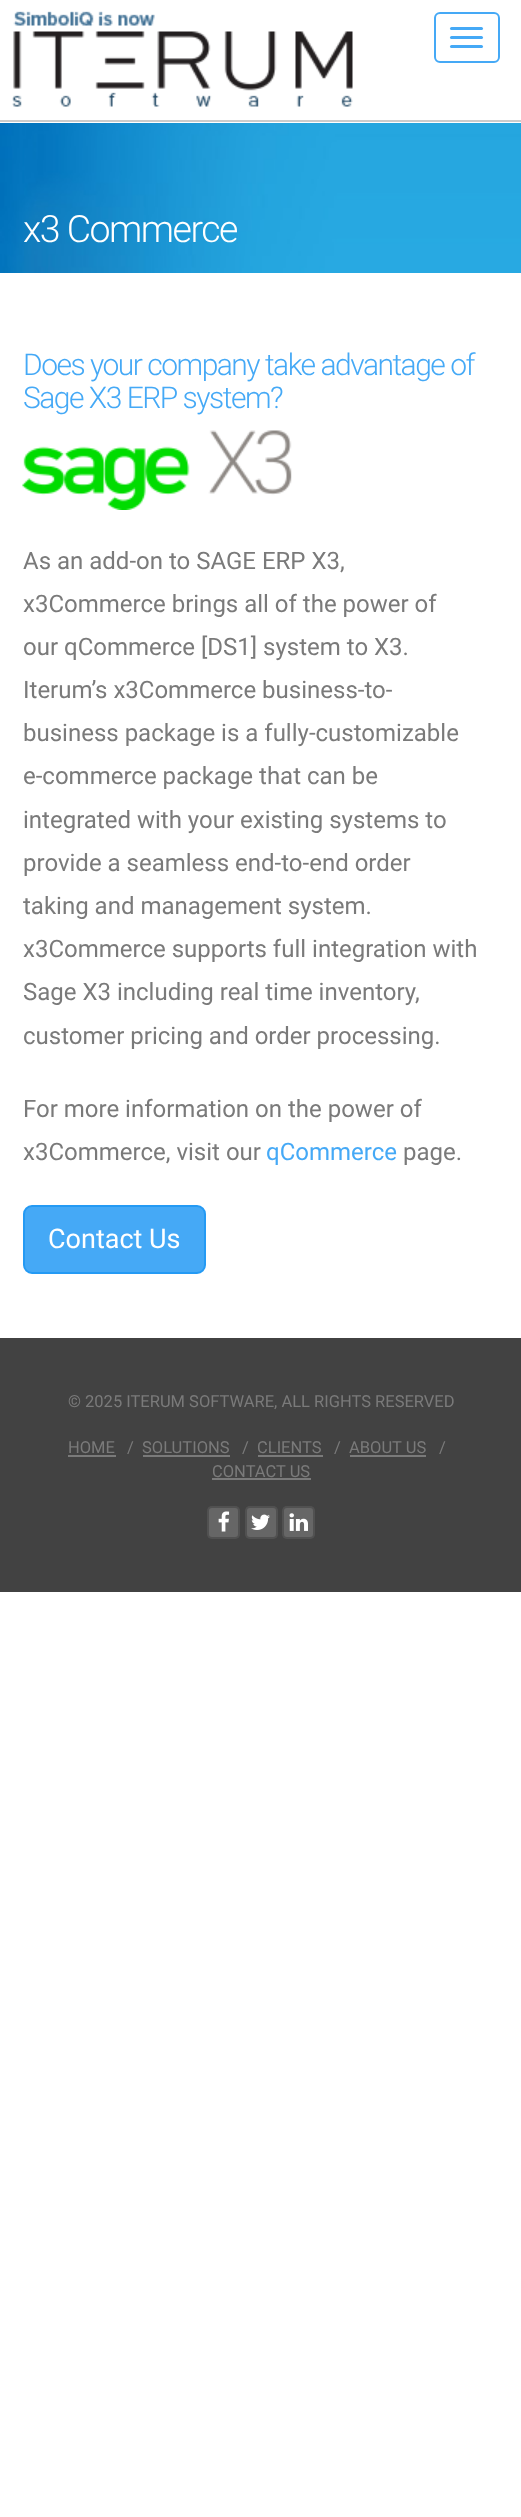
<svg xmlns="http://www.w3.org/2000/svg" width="521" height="2517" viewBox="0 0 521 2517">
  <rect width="100%" height="100%" fill="rgb(255,255,255)"/>
  <rect x="0" y="120" width="521" height="2" fill="rgb(204,204,204)"/>
  <image x="12" y="11" width="341" height="96" href="pic1.png"/>
  <rect x="435" y="13" width="64" height="49" rx="5" fill="none" stroke="rgb(69,169,246)" stroke-width="2"/>
  <rect x="450" y="27" width="33" height="3" rx="1.5" fill="rgb(69,169,246)"/>
  <rect x="450" y="36" width="33" height="3" rx="1.5" fill="rgb(69,169,246)"/>
  <rect x="450" y="45" width="33" height="3" rx="1.5" fill="rgb(69,169,246)"/>
  <image x="0" y="123" width="521" height="150" href="pic2.png"/>
  <text x="23" y="242" font-family="Roboto" font-size="37.5" font-weight="300" letter-spacing="-1.5" fill="rgb(255,255,255)">x3 Commerce</text>
  <g font-family="Roboto" font-size="30" font-weight="300" letter-spacing="-1.5" fill="rgb(69,169,246)">
    <text>
      <tspan x="23" y="375">Does your company take advantage of</tspan>
      <tspan x="23" y="408">Sage X3 ERP system?</tspan>
    </text>
  </g>
  <image x="22" y="430" width="270" height="80" href="pic3.png"/>
  <g font-family="Roboto" font-size="24" fill="rgb(122,122,122)">
    <text>
      <tspan x="23" y="569">As an add-on to SAGE ERP X3,</tspan>
      <tspan x="23" y="612">x3Commerce brings all of the power of</tspan>
      <tspan x="23" y="655">our qCommerce [DS1] system to X3.</tspan>
      <tspan x="23" y="698">Iterum’s x3Commerce business-to-</tspan>
      <tspan x="23" y="741">business package is a fully-customizable</tspan>
      <tspan x="23" y="784">e-commerce package that can be</tspan>
      <tspan x="23" y="828">integrated with your existing systems to</tspan>
      <tspan x="23" y="871">provide a seamless end-to-end order</tspan>
      <tspan x="23" y="914">taking and management system.</tspan>
      <tspan x="23" y="957">x3Commerce supports full integration with</tspan>
      <tspan x="23" y="1000">Sage X3 including real time inventory,</tspan>
      <tspan x="23" y="1044">customer pricing and order processing.</tspan>
    </text>
    <text>
      <tspan x="23" y="1117">For more information on the power of</tspan>
      <tspan x="23" y="1160">x3Commerce, visit our</tspan>
    </text>
  </g>
  <text x="266" y="1160" font-family="Roboto" font-size="24" fill="rgb(69,169,246)">qCommerce</text>
  <text x="403" y="1160" font-family="Roboto" font-size="24" fill="rgb(122,122,122)">page.</text>
  <rect x="24" y="1206" width="181" height="67" rx="8" fill="rgb(69,169,246)" stroke="rgb(36,154,244)" stroke-width="2"/>
  <text x="48" y="1248" font-family="Roboto" font-size="27" fill="rgb(255,255,255)">Contact Us</text>
  <rect x="0" y="1338" width="521" height="254" fill="rgb(66,66,66)"/>
  <g font-family="Roboto" font-size="16.5" fill="rgb(122,122,122)">
    <text x="68" y="1407">© 2025 ITERUM SOFTWARE, ALL RIGHTS RESERVED</text>
    <text x="68" y="1453">HOME</text>
  </g>
  <rect x="68" y="1455" width="48" height="2" fill="rgb(122,122,122)"/>
  <g font-family="Roboto" font-size="16.5" fill="rgb(122,122,122)">
    <text x="127" y="1453">/</text>
    <text x="142" y="1453">SOLUTIONS</text>
  </g>
  <rect x="143" y="1455" width="87" height="2" fill="rgb(122,122,122)"/>
  <g font-family="Roboto" font-size="16.5" fill="rgb(122,122,122)">
    <text x="242" y="1453">/</text>
    <text x="257" y="1453">CLIENTS</text>
  </g>
  <rect x="258" y="1455" width="65" height="2" fill="rgb(122,122,122)"/>
  <g font-family="Roboto" font-size="16.5" fill="rgb(122,122,122)">
    <text x="334" y="1453">/</text>
    <text x="349" y="1453">ABOUT US</text>
  </g>
  <rect x="350" y="1455" width="76" height="2" fill="rgb(122,122,122)"/>
  <g font-family="Roboto" font-size="16.5" fill="rgb(122,122,122)">
    <text x="439" y="1453">/</text>
    <text x="212" y="1477">CONTACT US</text>
  </g>
  <rect x="212" y="1478" width="99" height="2" fill="rgb(122,122,122)"/>
  <rect x="207" y="1506" width="33" height="33" rx="5" fill="rgb(102,102,102)"/>
  <rect x="208" y="1507" width="31" height="31" rx="4" fill="none" stroke="rgba(0,0,0,0.2)" stroke-width="2"/>
  <image x="218" y="1511" width="12" height="21" href="pic4.png"/>
  <rect x="245" y="1506" width="33" height="33" rx="5" fill="rgb(102,102,102)"/>
  <rect x="246" y="1507" width="31" height="31" rx="4" fill="none" stroke="rgba(0,0,0,0.2)" stroke-width="2"/>
  <image x="251" y="1514" width="19" height="16" href="pic5.png"/>
  <rect x="282" y="1506" width="33" height="33" rx="5" fill="rgb(102,102,102)"/>
  <rect x="283" y="1507" width="31" height="31" rx="4" fill="none" stroke="rgba(0,0,0,0.2)" stroke-width="2"/>
  <image x="289" y="1513" width="19" height="18" href="pic6.png"/>
</svg>
